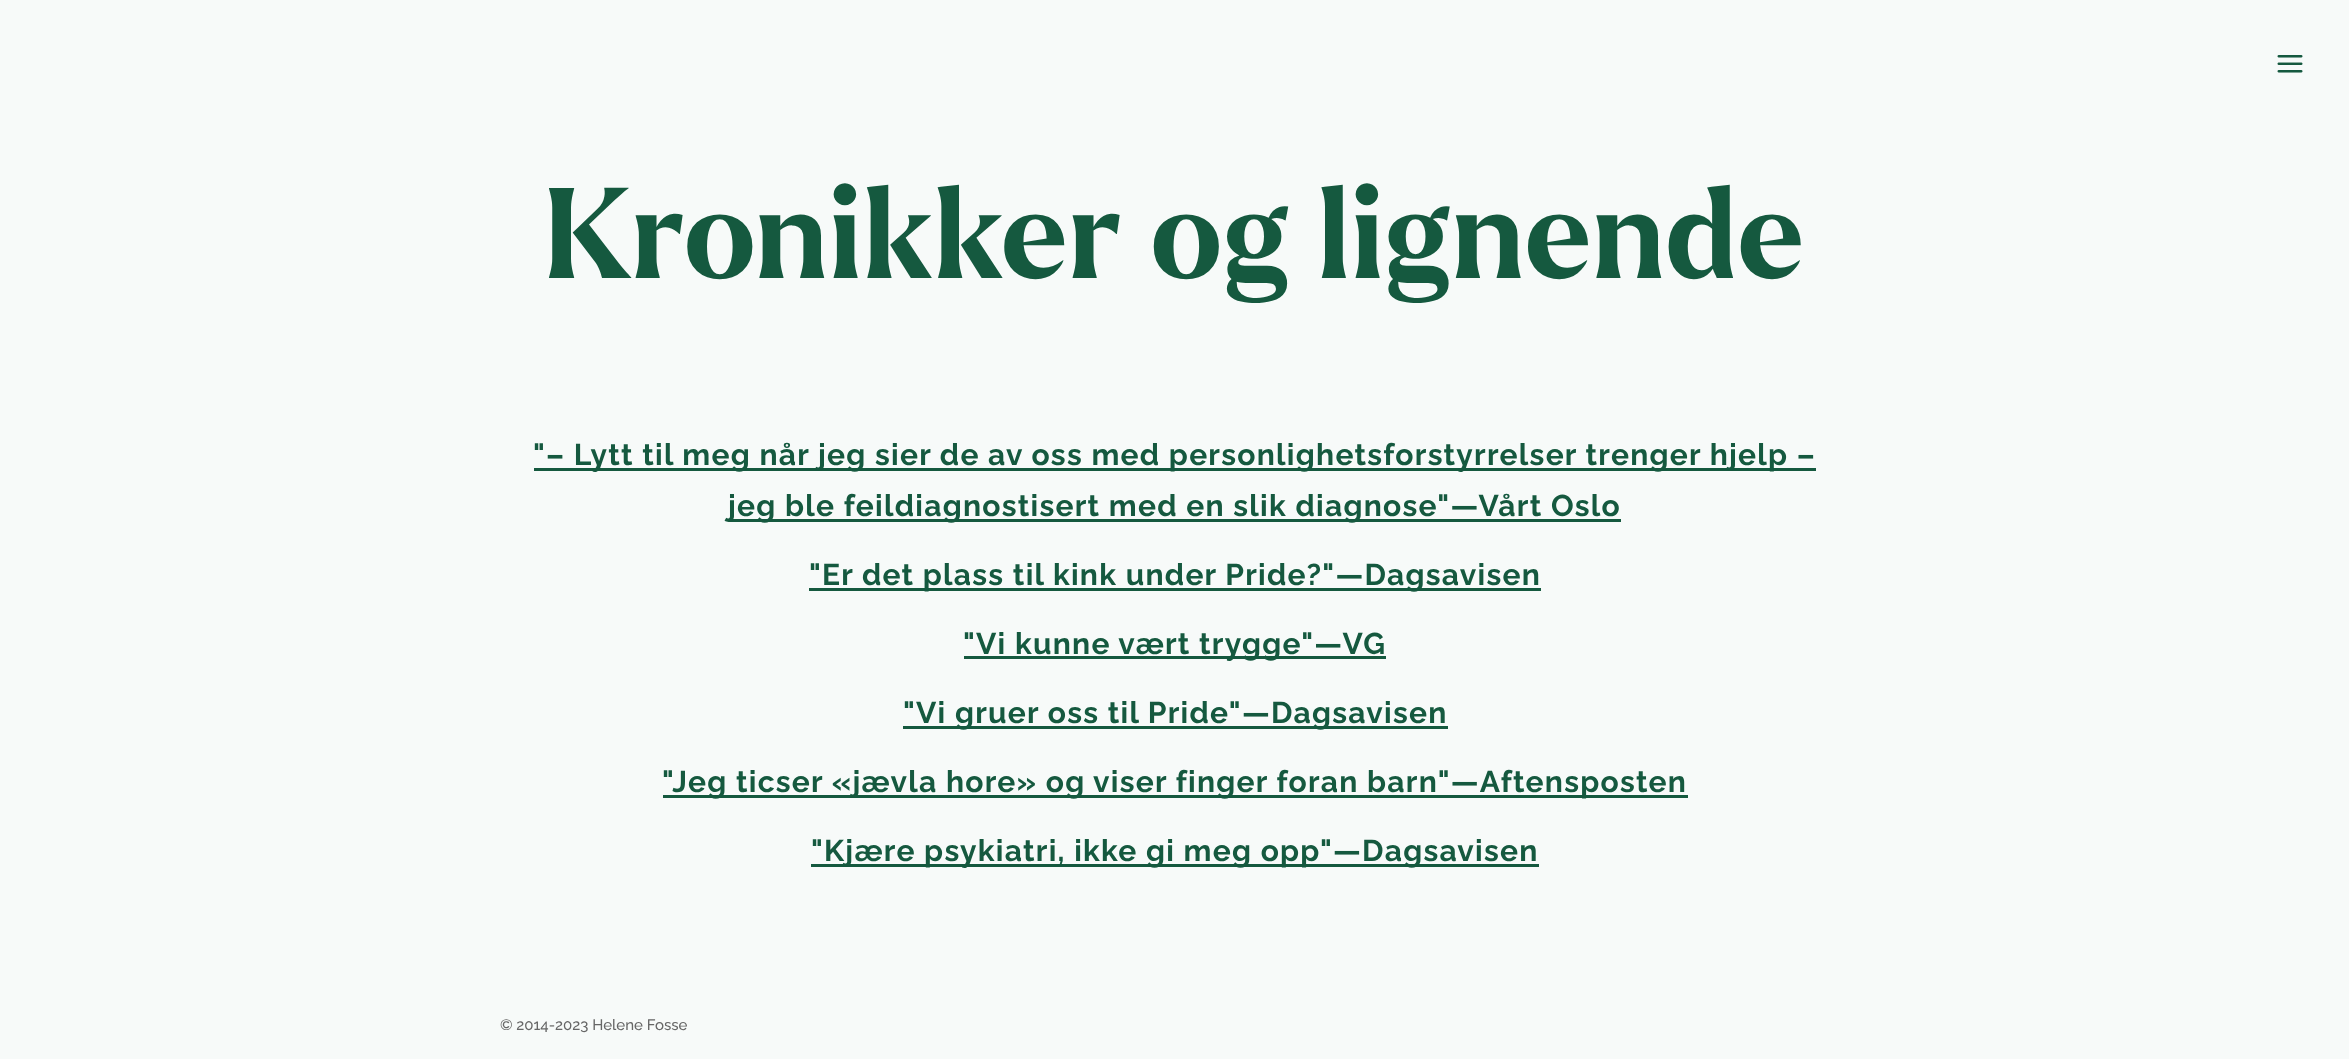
<svg xmlns="http://www.w3.org/2000/svg" width="2349" height="1059" viewBox="0 0 2349 1059">
  <rect width="100%" height="100%" fill="rgb(247,250,249)"/>
  <image x="2277" y="55" width="26" height="18" href="pic1.png"/>
  <text x="544" y="278" font-family="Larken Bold" font-size="125" font-weight="bold" letter-spacing="1.25" fill="rgb(21,89,63)">Kronikker og lignende</text>
  <rect x="534" y="468" width="1282" height="3" fill="rgb(21,89,63)"/>
  <text x="533" y="465" font-family="Raleway" font-size="30" font-weight="bold" letter-spacing="1.25" fill="rgb(21,89,63)">"– Lytt til meg når jeg sier de av oss med personlighetsforstyrrelser trenger hjelp –</text>
  <rect x="729" y="519" width="892" height="3" fill="rgb(21,89,63)"/>
  <text x="728" y="516" font-family="Raleway" font-size="30" font-weight="bold" letter-spacing="1.25" fill="rgb(21,89,63)">jeg ble feildiagnostisert med en slik diagnose"—Vårt Oslo</text>
  <rect x="809" y="588" width="732" height="3" fill="rgb(21,89,63)"/>
  <text x="809" y="585" font-family="Raleway" font-size="30" font-weight="bold" letter-spacing="1.25" fill="rgb(21,89,63)">"Er det plass til kink under Pride?"—Dagsavisen</text>
  <rect x="964" y="656" width="422" height="3" fill="rgb(21,89,63)"/>
  <text x="963" y="654" font-family="Raleway" font-size="30" font-weight="bold" letter-spacing="1.25" fill="rgb(21,89,63)">"Vi kunne vært trygge"—VG</text>
  <rect x="903" y="726" width="545" height="3" fill="rgb(21,89,63)"/>
  <text x="903" y="723" font-family="Raleway" font-size="30" font-weight="bold" letter-spacing="1.25" fill="rgb(21,89,63)">"Vi gruer oss til Pride"—Dagsavisen</text>
  <rect x="663" y="795" width="1025" height="3" fill="rgb(21,89,63)"/>
  <text x="662" y="792" font-family="Raleway" font-size="30" font-weight="bold" letter-spacing="1.25" fill="rgb(21,89,63)">"Jeg ticser «jævla hore» og viser finger foran barn"—Aftensposten</text>
  <rect x="811" y="864" width="728" height="3" fill="rgb(21,89,63)"/>
  <text x="811" y="861" font-family="Raleway" font-size="30" font-weight="bold" letter-spacing="1.25" fill="rgb(21,89,63)">"Kjære psykiatri, ikke gi meg opp"—Dagsavisen</text>
  <text x="500" y="1030" font-family="Raleway" font-size="15" font-weight="500" fill="rgb(102,102,102)">© 2014-2023 Helene Fosse</text>
</svg>
